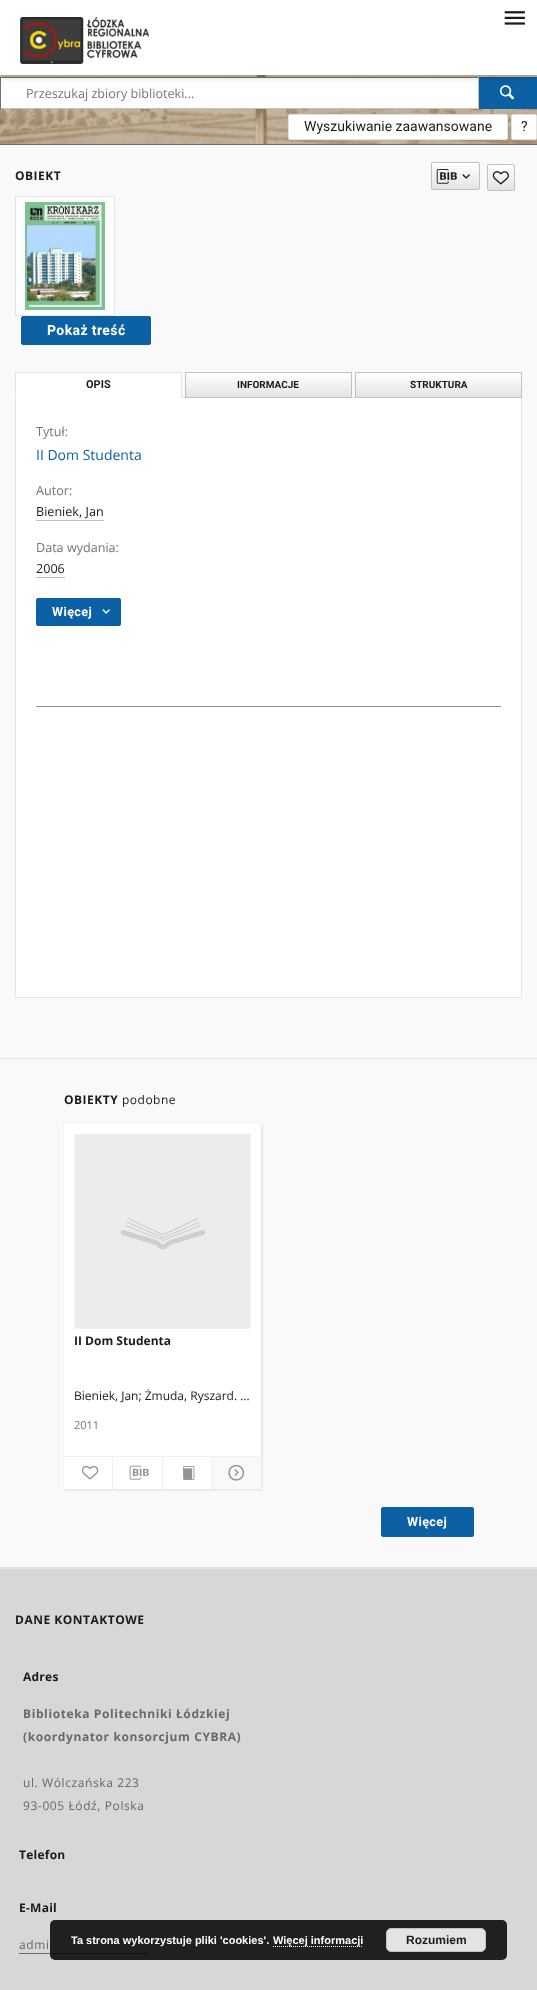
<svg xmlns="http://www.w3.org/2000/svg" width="537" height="1990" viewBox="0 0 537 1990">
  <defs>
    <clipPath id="clip1"><rect x="431" y="162" width="49" height="28" rx="2"/></clipPath>
    <linearGradient id="g1" gradientUnits="userSpaceOnUse" x1="456" y1="163" x2="456" y2="189"><stop offset="0" stop-color="rgb(255,255,255)"/><stop offset="1" stop-color="rgb(228,228,228)"/></linearGradient>
    <clipPath id="clip2"><rect x="487" y="164" width="28" height="27" rx="2"/></clipPath>
    <linearGradient id="g2" gradientUnits="userSpaceOnUse" x1="501" y1="165" x2="501" y2="190"><stop offset="0" stop-color="rgb(255,255,255)"/><stop offset="1" stop-color="rgb(228,228,228)"/></linearGradient>
    <linearGradient id="g3" gradientUnits="userSpaceOnUse" x1="269" y1="373" x2="269" y2="397"><stop offset="0" stop-color="rgb(255,255,255)"/><stop offset="1" stop-color="rgb(228,228,228)"/></linearGradient>
    <linearGradient id="g4" gradientUnits="userSpaceOnUse" x1="439" y1="373" x2="439" y2="397"><stop offset="0" stop-color="rgb(255,255,255)"/><stop offset="1" stop-color="rgb(228,228,228)"/></linearGradient>
  </defs>
  <rect width="100%" height="100%" fill="rgb(249,249,249)"/>
  <image x="0" y="75" width="537" height="69" href="pic3.png"/>
  <rect x="1" y="78" width="477" height="30" fill="rgb(255,255,255)"/>
  <rect x="0" y="77" width="479" height="1" fill="rgb(112,112,112)"/>
  <rect x="478" y="77" width="1" height="32" fill="rgb(193,193,193)"/>
  <rect x="0" y="108" width="479" height="1" fill="rgb(193,193,193)"/>
  <rect x="0" y="77" width="1" height="32" fill="rgb(112,112,112)"/>
  <rect x="479" y="77" width="58" height="32" fill="rgb(12,97,165)"/>
  <image x="499" y="85" width="16" height="15" href="pic4.png"/>
  <rect x="0" y="1" width="537" height="75" fill="rgba(0,0,0,0.08)" filter="blur(5px)"/>
  <rect x="0" y="4" width="537" height="75" fill="rgba(0,0,0,0.06)" filter="blur(2.5px)"/>
  <rect x="1" y="3" width="535" height="73" fill="rgba(0,0,0,0.06)" filter="blur(2px)"/>
  <rect x="0" y="0" width="537" height="75" fill="rgb(255,255,255)"/>
  <image x="20" y="17" width="129" height="47" href="pic1.png"/>
  <image x="504" y="11" width="21" height="14" href="pic2.png"/>
  <rect x="0" y="144" width="537" height="1" fill="rgb(112,112,112)"/>
  <text x="26" y="98" font-family="Open Sans" font-size="12.6" fill="rgb(117,117,117)">Przeszukaj zbiory biblioteki...</text>
  <rect x="288.5" y="114.5" width="219" height="25" rx="1.5" fill="rgb(255,255,255)" stroke="rgb(226,226,226)"/>
  <text x="304" y="131" font-family="Roboto" font-size="14" fill="rgb(26,27,28)">Wyszukiwanie zaawansowane</text>
  <rect x="511.5" y="114.5" width="25" height="25" rx="1.5" fill="rgb(255,255,255)" stroke="rgb(226,226,226)"/>
  <text x="521" y="131" font-family="Roboto" font-size="14" fill="rgb(26,27,28)">?</text>
  <text x="15" y="180" font-family="Open Sans" font-size="12" font-weight="bold" letter-spacing="0.5" fill="rgb(26,27,28)">OBIEKT</text>
  <g clip-path="url(#clip1)">
    <rect x="431" y="163" width="49" height="26" fill="url(#g1)"/>
  </g>
  <rect x="431.5" y="162.5" width="48" height="27" rx="1.5" fill="none" stroke="rgb(193,193,193)"/>
  <image x="436" y="169" width="21" height="15" href="pic5.png"/>
  <image x="462" y="174" width="8" height="5" href="pic6.png"/>
  <g clip-path="url(#clip2)">
    <rect x="487" y="165" width="28" height="25" fill="url(#g2)"/>
  </g>
  <rect x="487.5" y="164.5" width="27" height="26" rx="1.5" fill="none" stroke="rgb(193,193,193)"/>
  <image x="492" y="171" width="17" height="14" href="pic7.png"/>
  <rect x="15.5" y="196.5" width="99" height="119" fill="rgb(255,255,255)" stroke="rgb(228,228,228)"/>
  <image x="25" y="202" width="80" height="108" href="pic8.png"/>
  <rect x="21.5" y="316.5" width="129" height="28" rx="1.5" fill="rgb(12,97,165)" stroke="rgb(12,97,165)"/>
  <text x="47" y="335" font-family="Roboto" font-size="14" font-weight="bold" letter-spacing="0.4" fill="rgb(255,255,255)">Pokaż treść</text>
  <rect x="182" y="397" width="173" height="1" fill="rgb(228,228,228)"/>
  <rect x="15" y="373" width="167" height="25" fill="rgb(255,255,255)"/>
  <rect x="15" y="372" width="167" height="1" fill="rgb(228,228,228)"/>
  <path d="M182 372V398L181 397V373Z" fill="rgb(228,228,228)"/>
  <path d="M15 398V372L16 373V397Z" fill="rgb(228,228,228)"/>
  <text x="86" y="388" font-family="Roboto" font-size="11" font-weight="bold" fill="rgb(26,27,28)">OPIS</text>
  <rect x="186" y="373" width="165" height="24" fill="url(#g3)"/>
  <rect x="185.5" y="372.5" width="166" height="25" fill="none" stroke="rgb(193,193,193)"/>
  <text x="237" y="388" font-family="Roboto" font-size="10" font-weight="bold" fill="rgb(26,27,28)">INFORMACJE</text>
  <rect x="356" y="373" width="165" height="24" fill="url(#g4)"/>
  <rect x="355.5" y="372.5" width="166" height="25" fill="none" stroke="rgb(193,193,193)"/>
  <text x="410" y="388" font-family="Roboto" font-size="10" font-weight="bold" fill="rgb(26,27,28)">STRUKTURA</text>
  <rect x="16" y="398" width="505" height="599" fill="rgb(255,255,255)"/>
  <rect x="521" y="398" width="1" height="600" fill="rgb(228,228,228)"/>
  <rect x="15" y="997" width="507" height="1" fill="rgb(228,228,228)"/>
  <rect x="15" y="398" width="1" height="600" fill="rgb(228,228,228)"/>
  <text x="36" y="436" font-family="Open Sans" font-size="12.6" fill="rgb(117,117,117)">Tytuł:</text>
  <text x="36" y="460" font-family="Open Sans" font-size="14" fill="rgb(12,97,165)">II Dom Studenta</text>
  <text x="36" y="495" font-family="Open Sans" font-size="12.6" fill="rgb(117,117,117)">Autor:</text>
  <text x="36" y="516" font-family="Open Sans" font-size="12.6" fill="rgb(26,27,28)">Bieniek, Jan</text>
  <rect x="36" y="520" width="68" height="1" fill="rgb(193,193,193)"/>
  <text x="36" y="552" font-family="Open Sans" font-size="12.6" fill="rgb(117,117,117)">Data wydania:</text>
  <text x="36" y="573" font-family="Open Sans" font-size="12.6" fill="rgb(26,27,28)">2006</text>
  <rect x="36" y="577" width="29" height="1" fill="rgb(193,193,193)"/>
  <rect x="36.5" y="598.5" width="84" height="27" rx="1.5" fill="rgb(12,97,165)" stroke="rgb(12,97,165)"/>
  <text x="52" y="616" font-family="Roboto" font-size="12.6" font-weight="bold" letter-spacing="0.4" fill="rgb(255,255,255)">Więcej</text>
  <image x="102" y="609" width="8" height="5" href="pic9.png"/>
  <rect x="36" y="706" width="465" height="1" fill="rgb(147,147,147)"/>
  <rect x="0" y="1058" width="537" height="1" fill="rgb(228,228,228)"/>
  <rect x="0" y="1567" width="537" height="2" fill="rgb(228,228,228)"/>
  <text x="64" y="1104" font-family="Open Sans" font-size="12" font-weight="bold" letter-spacing="0.5" fill="rgb(26,27,28)">OBIEKTY</text>
  <text x="122" y="1104" font-family="Open Sans" font-size="12" letter-spacing="0.5" fill="rgb(26,27,28)">podobne</text>
  <rect x="65" y="1125" width="197" height="365" fill="rgb(222,222,222)" filter="blur(1.5px)"/>
  <rect x="64" y="1124" width="197" height="365" fill="rgb(255,255,255)"/>
  <rect x="74.5" y="1134.5" width="176" height="194" fill="rgb(236,236,236)" stroke="rgb(241,241,241)"/>
  <image x="120" y="1218" width="86" height="32" href="pic10.png"/>
  <text x="74" y="1345" font-family="Open Sans" font-size="12" font-weight="bold" fill="rgb(26,27,28)">II Dom Studenta</text>
  <text x="74" y="1400" font-family="Open Sans" font-size="12" fill="rgb(26,27,28)">Bieniek, Jan; Żmuda, Ryszard. …</text>
  <text x="74" y="1429" font-family="Open Sans" font-size="11" fill="rgb(117,117,117)">2011</text>
  <rect x="64" y="1456" width="197" height="1" fill="rgb(241,241,241)"/>
  <rect x="112" y="1457" width="1" height="32" fill="rgb(241,241,241)"/>
  <image x="81" y="1465" width="18" height="15" href="pic11.png"/>
  <rect x="162" y="1457" width="1" height="32" fill="rgb(241,241,241)"/>
  <image x="129" y="1465" width="20" height="15" href="pic12.png"/>
  <rect x="211" y="1457" width="1" height="32" fill="rgb(241,241,241)"/>
  <image x="183" y="1466" width="12" height="14" href="pic13.png"/>
  <rect x="212" y="1457" width="49" height="32" fill="rgb(249,249,249)"/>
  <image x="228" y="1464" width="17" height="17" href="pic14.png"/>
  <rect x="381.5" y="1507.5" width="92" height="29" rx="1.5" fill="rgb(12,97,165)" stroke="rgb(12,97,165)"/>
  <text x="407" y="1526" font-family="Roboto" font-size="12.6" font-weight="bold" letter-spacing="0.4" fill="rgb(255,255,255)">Więcej</text>
  <rect x="0" y="1569" width="537" height="421" fill="rgb(215,215,215)"/>
  <text x="15" y="1624" font-family="Open Sans" font-size="12" font-weight="bold" letter-spacing="0.5" fill="rgb(26,27,28)">DANE KONTAKTOWE</text>
  <text x="23" y="1681" font-family="Open Sans" font-size="12" font-weight="bold" letter-spacing="0.25" fill="rgb(26,27,28)">Adres</text>
  <g font-family="Open Sans" font-size="12" font-weight="bold" letter-spacing="0.6" fill="rgb(105,105,105)">
    <text>
      <tspan x="23" y="1718">Biblioteka Politechniki Łódzkiej</tspan>
      <tspan x="23" y="1741">(koordynator konsorcjum CYBRA)</tspan>
    </text>
  </g>
  <g font-family="Open Sans" font-size="12" letter-spacing="0.6" fill="rgb(105,105,105)">
    <text>
      <tspan x="23" y="1787">ul. Wólczańska 223</tspan>
      <tspan x="23" y="1810">93-005 Łódź, Polska</tspan>
    </text>
  </g>
  <g font-family="Open Sans" font-size="12" font-weight="bold" letter-spacing="0.25" fill="rgb(26,27,28)">
    <text x="19" y="1859">Telefon</text>
    <text x="19" y="1912">E-Mail</text>
  </g>
  <text x="19" y="1949" font-family="Open Sans" font-size="12" letter-spacing="0.6" fill="rgb(105,105,105)">admi</text>
  <rect x="19" y="1953" width="129" height="1" fill="rgb(105,105,105)"/>
  <rect x="50" y="1920" width="457" height="40" rx="5" fill="rgba(0,0,0,0.85)"/>
  <text x="71" y="1944" font-family="Liberation Sans" font-size="11" font-weight="bold" fill="rgb(255,255,255)">Ta strona wykorzystuje pliki 'cookies'.</text>
  <path d="M273 1946.5H363" fill="none" stroke="rgb(255,255,255)" stroke-dasharray="1 1"/>
  <text x="273" y="1944" font-family="Liberation Sans" font-size="11" font-weight="bold" fill="rgb(255,255,255)">Więcej informacji</text>
  <rect x="386.5" y="1928.5" width="99" height="23" rx="4.5" fill="rgb(228,228,228)" stroke="rgb(193,193,193)"/>
  <text x="406" y="1944" font-family="Liberation Sans" font-size="12" font-weight="bold" fill="rgb(26,27,28)">Rozumiem</text>
</svg>
